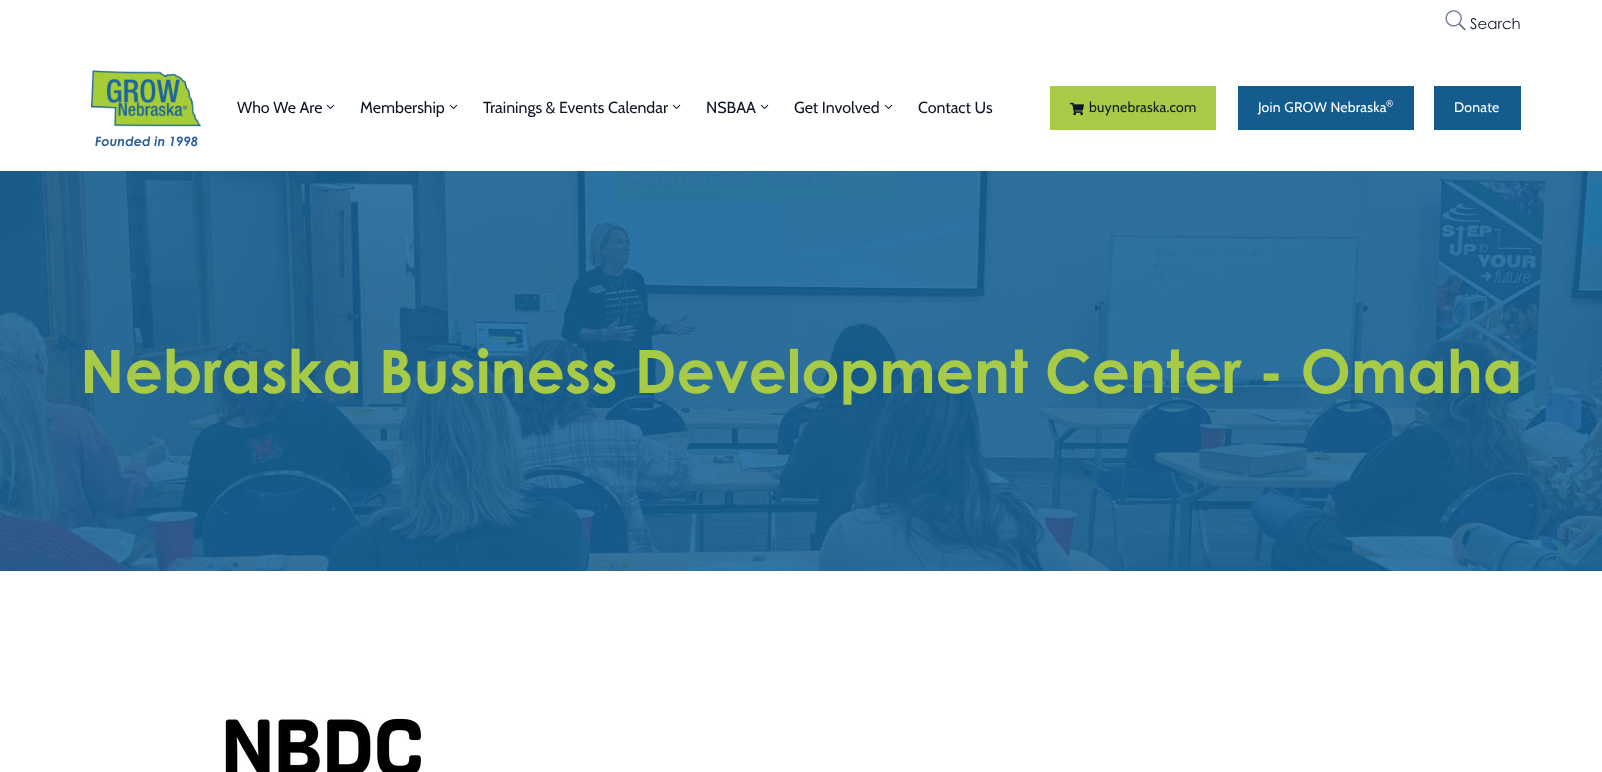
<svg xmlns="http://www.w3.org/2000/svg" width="1602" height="772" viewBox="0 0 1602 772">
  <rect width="100%" height="100%" fill="rgb(255,255,255)"/>
  <image x="1445" y="10" width="21" height="21" href="pic1.png"/>
  <text x="1470" y="29" font-family="Century Gothic" font-size="15" fill="rgb(13,22,38)">Search</text>
  <text x="237" y="113" font-family="Cabin" font-size="16" fill="rgb(13,22,38)">Who We Are</text>
  <image x="326" y="104" width="9" height="5" href="pic2.png"/>
  <text x="360" y="113" font-family="Cabin" font-size="16" fill="rgb(13,22,38)">Membership</text>
  <image x="449" y="104" width="9" height="5" href="pic2.png"/>
  <text x="483" y="113" font-family="Cabin" font-size="16" fill="rgb(13,22,38)">Trainings &amp; Events Calendar</text>
  <image x="672" y="104" width="9" height="5" href="pic2.png"/>
  <text x="706" y="113" font-family="Cabin" font-size="16" fill="rgb(13,22,38)">NSBAA</text>
  <image x="760" y="104" width="9" height="5" href="pic2.png"/>
  <text x="794" y="113" font-family="Cabin" font-size="16" fill="rgb(13,22,38)">Get Involved</text>
  <image x="884" y="104" width="9" height="5" href="pic2.png"/>
  <text x="918" y="113" font-family="Cabin" font-size="16" fill="rgb(13,22,38)">Contact Us</text>
  <rect x="1050" y="86" width="166" height="44" fill="rgb(167,202,71)"/>
  <image x="1070" y="102" width="14" height="14" href="pic3.png"/>
  <text x="1089" y="112" font-family="Cabin" font-size="14" letter-spacing="0.25" fill="rgb(13,22,38)">buynebraska.com</text>
  <rect x="1238" y="86" width="176" height="44" fill="rgb(21,92,142)"/>
  <text x="1258" y="112" font-family="Cabin" font-size="14" letter-spacing="0.25" fill="rgb(255,255,255)">Join GROW Nebraska</text>
  <text x="1386" y="107" font-family="Cabin" font-size="10" letter-spacing="0.25" fill="rgb(255,255,255)">®</text>
  <rect x="1434" y="86" width="87" height="44" fill="rgb(21,92,142)"/>
  <text x="1454" y="112" font-family="Cabin" font-size="14" letter-spacing="0.25" fill="rgb(255,255,255)">Donate</text>
  <image x="91" y="70" width="110" height="57" href="pic4.png"/>
  <text x="95" y="146" font-family="Century Gothic" font-size="13" font-weight="bold" font-style="italic" fill="rgb(47,98,151)">Founded in 1998</text>
  <image x="0" y="171" width="1602" height="400" href="pic5.png"/>
  <text x="80" y="393" font-family="Century Gothic" font-size="60" font-weight="bold" fill="rgb(167,202,71)">Nebraska Business Development Center - Omaha</text>
  <image x="225" y="718" width="196" height="54" href="pic6.png"/>
</svg>
